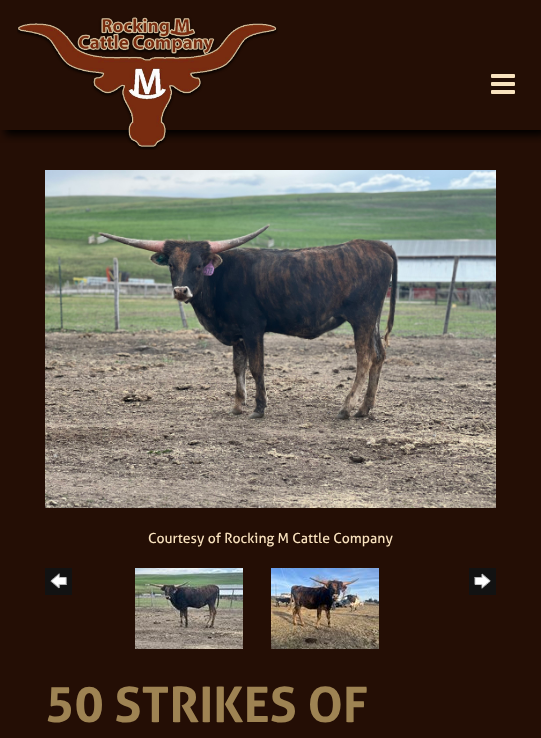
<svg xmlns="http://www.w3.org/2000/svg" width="541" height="738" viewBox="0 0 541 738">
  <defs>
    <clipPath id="clip1"><rect x="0" y="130" width="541" height="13"/></clipPath>
  </defs>
  <rect width="100%" height="100%" fill="rgb(36,14,5)"/>
  <g clip-path="url(#clip1)">
    <rect x="5" y="5" width="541" height="130" fill="rgb(0,0,0)" filter="blur(4px)"/>
  </g>
  <image x="17" y="17" width="261" height="133" href="pic1.png"/>
  <image x="491" y="74" width="24" height="20" href="pic2.png"/>
  <image x="45" y="170" width="451" height="338" href="pic3.png"/>
  <text x="148" y="543" font-family="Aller" font-size="14" fill="rgb(250,227,191)">Courtesy of Rocking M Cattle Company</text>
  <image x="45" y="568" width="27" height="27" href="pic4.png"/>
  <image x="135" y="568" width="108" height="81" href="pic5.png"/>
  <image x="271" y="568" width="108" height="81" href="pic6.png"/>
  <image x="469" y="568" width="27" height="27" href="pic7.png"/>
  <text x="45" y="722" font-family="Aller" font-size="49" font-weight="bold" fill="rgb(158,131,83)">50 STRIKES OF</text>
</svg>
